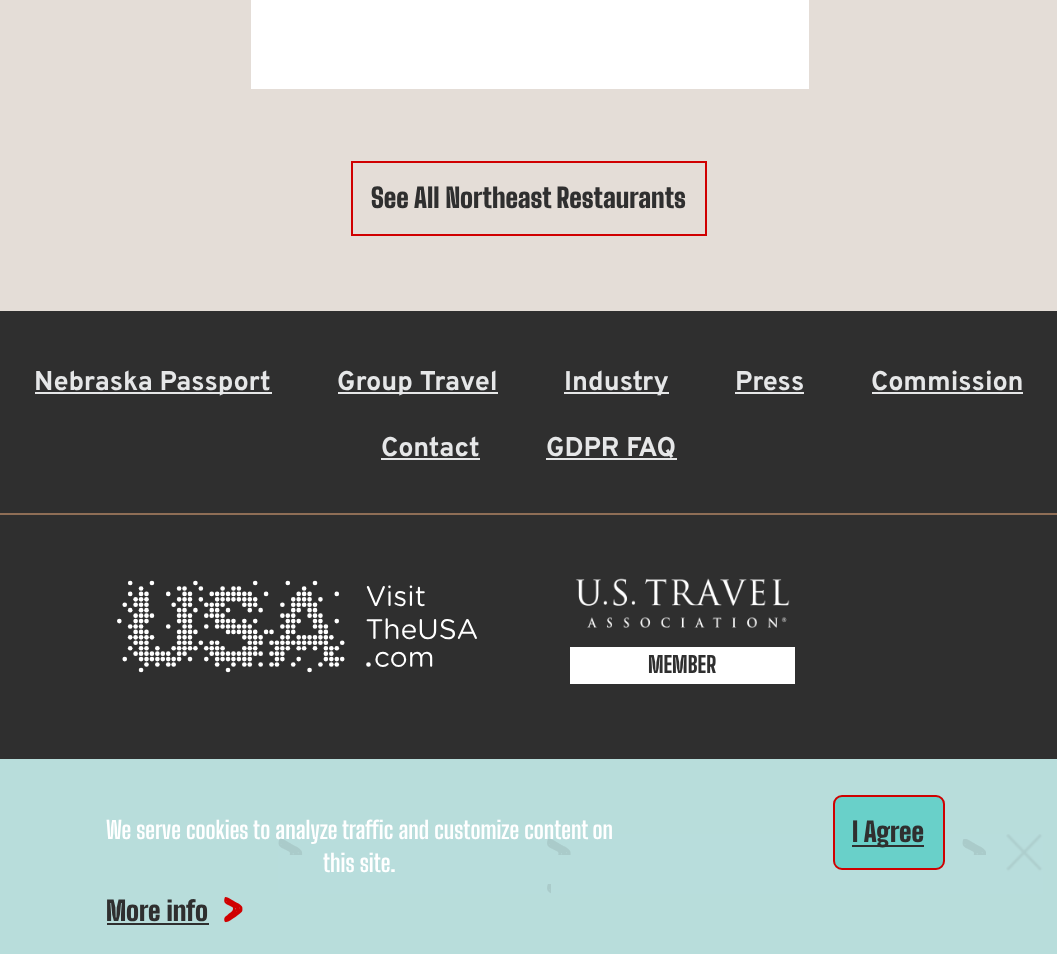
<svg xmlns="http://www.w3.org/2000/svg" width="1057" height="954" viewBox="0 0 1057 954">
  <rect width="100%" height="100%" fill="rgb(228,221,215)"/>
  <rect x="251" y="0" width="558" height="89" fill="rgb(255,255,255)"/>
  <rect x="352" y="162" width="354" height="73" fill="none" stroke="rgb(208,0,0)" stroke-width="2"/>
  <text x="371" y="208" font-family="Big Shoulders Display" font-size="27" font-weight="900" fill="rgb(47,47,47)">See All Northeast Restaurants</text>
  <rect x="0" y="311" width="1057" height="202" fill="rgb(47,47,47)"/>
  <rect x="0" y="513" width="1057" height="2" fill="rgb(143,110,86)"/>
  <rect x="35" y="392" width="237" height="2" fill="rgb(230,231,232)"/>
  <text x="34" y="390" font-family="Overpass" font-size="27" font-weight="bold" fill="rgb(230,231,232)">Nebraska Passport</text>
  <rect x="338" y="392" width="160" height="2" fill="rgb(230,231,232)"/>
  <text x="337" y="390" font-family="Overpass" font-size="27" font-weight="bold" fill="rgb(230,231,232)">Group Travel</text>
  <rect x="564" y="392" width="105" height="2" fill="rgb(230,231,232)"/>
  <g font-family="Overpass" font-size="27" font-weight="bold" fill="rgb(230,231,232)">
    <text x="564" y="390">Industry</text>
    <text x="735" y="390">Press</text>
  </g>
  <rect x="735" y="392" width="69" height="2" fill="rgb(230,231,232)"/>
  <text x="871" y="390" font-family="Overpass" font-size="27" font-weight="bold" fill="rgb(230,231,232)">Commission</text>
  <rect x="872" y="392" width="151" height="2" fill="rgb(230,231,232)"/>
  <text x="381" y="456" font-family="Overpass" font-size="27" font-weight="bold" fill="rgb(230,231,232)">Contact</text>
  <rect x="381" y="458" width="99" height="2" fill="rgb(230,231,232)"/>
  <rect x="546" y="458" width="131" height="2" fill="rgb(230,231,232)"/>
  <text x="546" y="456" font-family="Overpass" font-size="27" font-weight="bold" fill="rgb(230,231,232)">GDPR FAQ</text>
  <rect x="0" y="515" width="1057" height="244" fill="rgb(47,47,47)"/>
  <image x="117" y="580" width="360" height="93" href="pic1.png"/>
  <image x="575" y="578" width="215" height="50" href="pic2.png"/>
  <rect x="570" y="647" width="225" height="37" fill="rgb(255,255,255)"/>
  <text x="648" y="673" font-family="Big Shoulders Display" font-size="22.5" font-weight="800" fill="rgb(47,47,47)">MEMBER</text>
  <rect x="0" y="759" width="1057" height="195" fill="rgb(184,221,219)"/>
  <image x="278" y="839" width="25" height="16" href="pic3.png"/>
  <image x="547" y="839" width="24" height="55" href="pic4.png"/>
  <image x="962" y="839" width="24" height="16" href="pic5.png"/>
  <image x="1006" y="834" width="37" height="38" href="pic6.png"/>
  <rect x="278" y="834" width="765" height="60" fill="rgba(184,221,219,0.9)"/>
  <g font-family="Big Shoulders Display" font-size="24" font-weight="bold" fill="rgb(255,255,255)">
    <text x="106" y="839">We serve cookies to analyze traffic and customize content on</text>
    <text x="323" y="872">this site.</text>
  </g>
  <image x="224" y="897" width="19" height="26" href="pic7.png"/>
  <text x="106" y="921" font-family="Big Shoulders Display" font-size="27" font-weight="900" fill="rgb(47,47,47)">More info</text>
  <rect x="107" y="923" width="102" height="2" fill="rgb(47,47,47)"/>
  <rect x="834" y="796" width="110" height="73" rx="8" fill="rgb(105,208,201)" stroke="rgb(208,0,0)" stroke-width="2"/>
  <rect x="852" y="845" width="72" height="2" fill="rgb(47,47,47)"/>
  <text x="852" y="842" font-family="Big Shoulders Display" font-size="27" font-weight="900" fill="rgb(47,47,47)">I Agree</text>
</svg>
